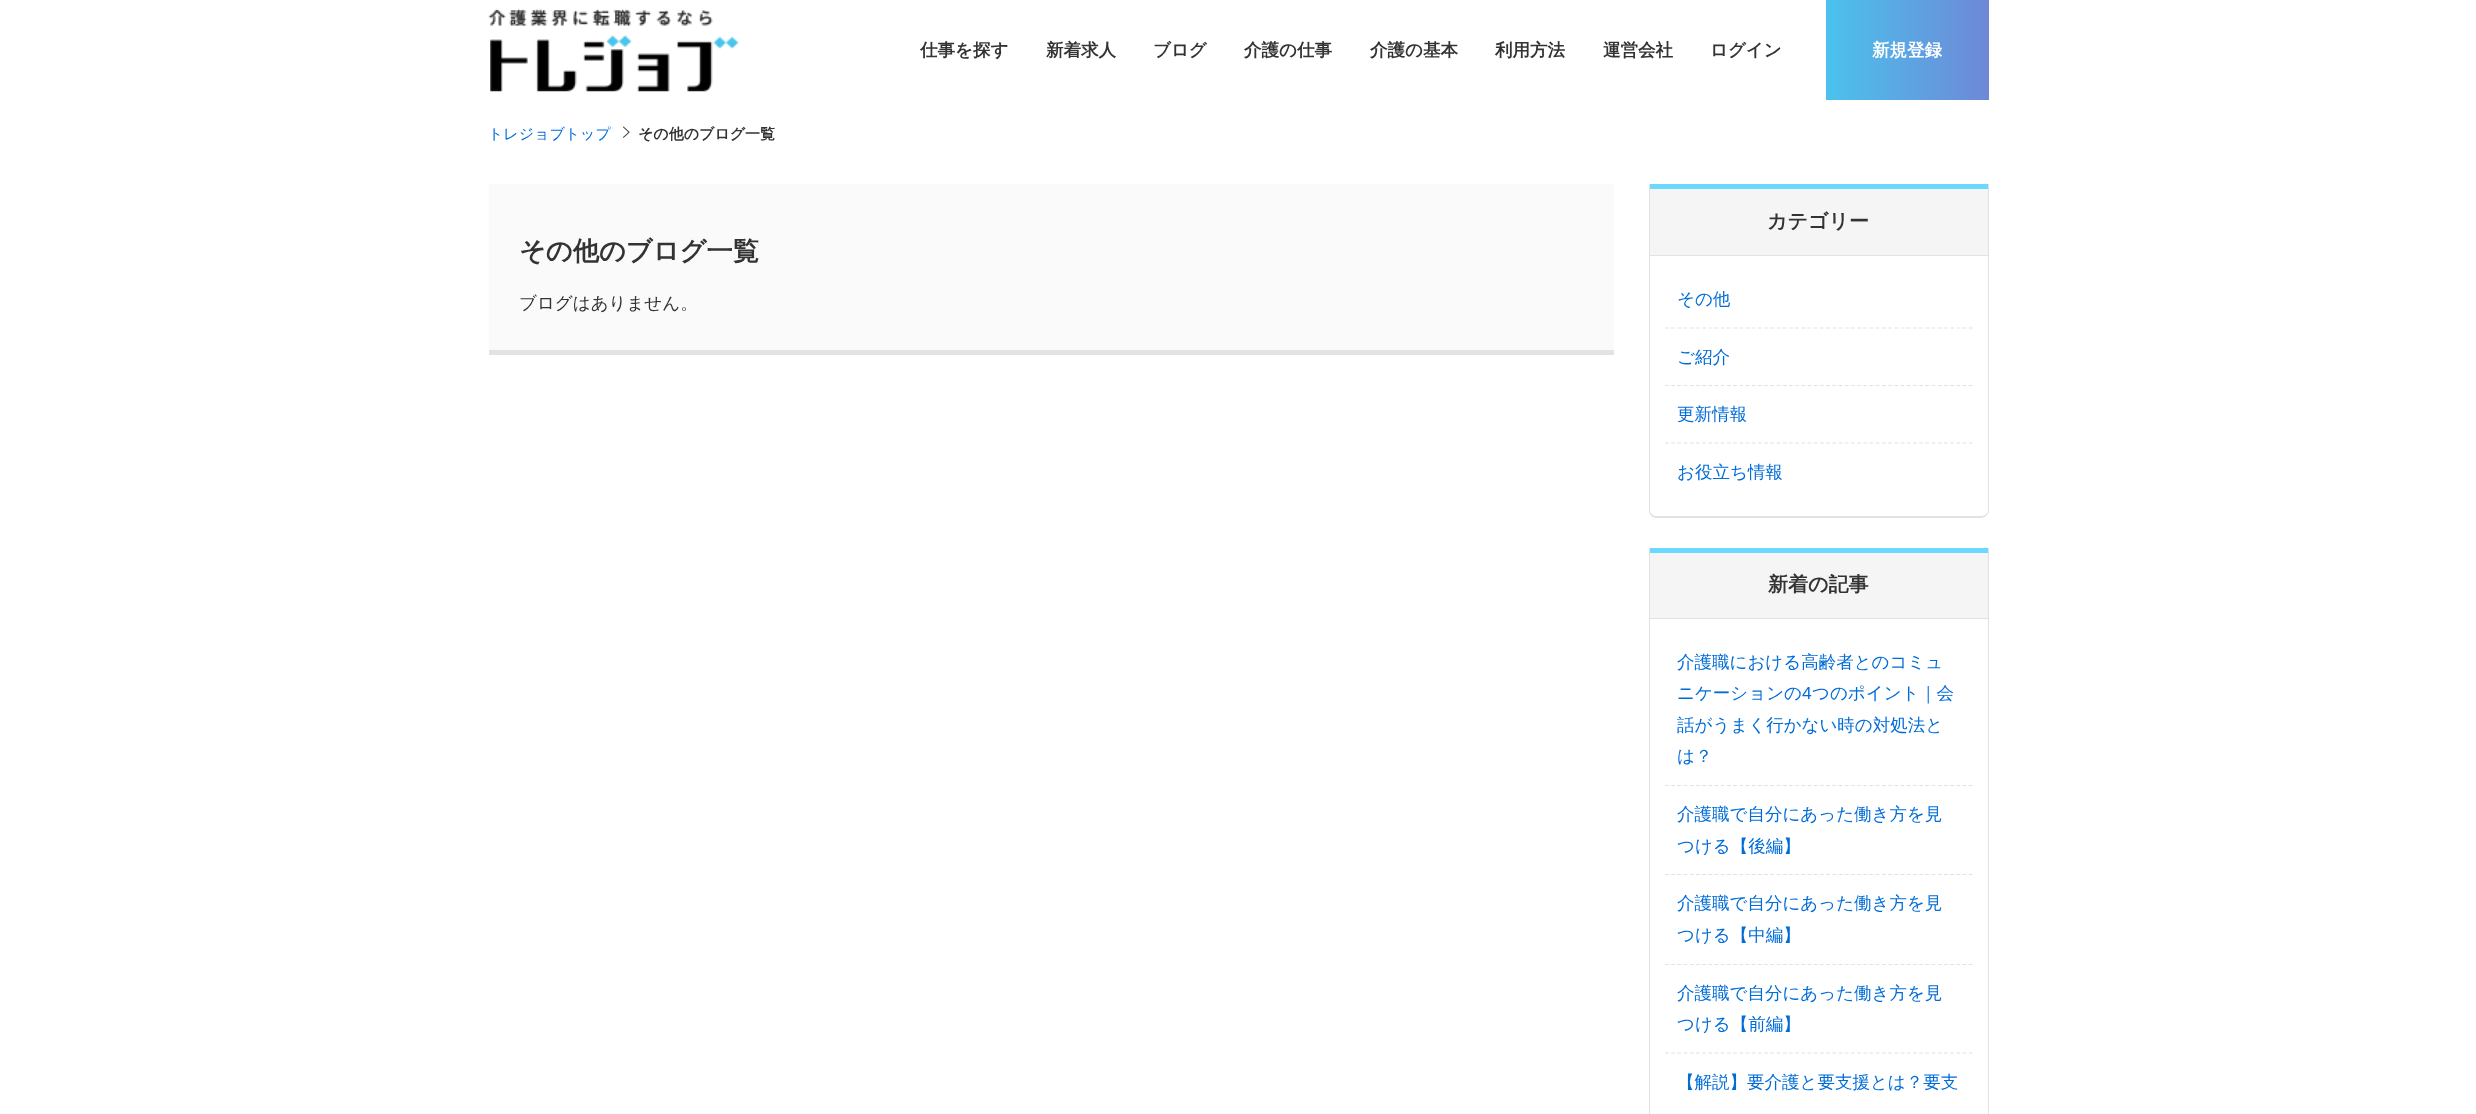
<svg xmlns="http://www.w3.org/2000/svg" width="2476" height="1114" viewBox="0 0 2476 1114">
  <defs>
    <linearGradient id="g1" gradientUnits="userSpaceOnUse" x1="1826" y1="50" x2="1989" y2="50"><stop offset="0" stop-color="rgb(75,194,237)"/><stop offset="1" stop-color="rgb(110,136,215)"/></linearGradient>
  </defs>
  <rect width="100%" height="100%" fill="rgb(255,255,255)"/>
  <image x="488" y="8" width="251" height="84" href="pic1.png"/>
  <g font-family="WenQuanYi Zen Hei" font-size="17.5" font-weight="bold" fill="rgb(51,51,51)">
    <text x="920" y="56">仕事を探す</text>
    <text x="1046" y="56">新着求人</text>
    <text x="1153" y="56">ブログ</text>
    <text x="1244" y="56">介護の仕事</text>
    <text x="1370" y="56">介護の基本</text>
    <text x="1495" y="56">利用方法</text>
    <text x="1603" y="56">運営会社</text>
    <text x="1710" y="56">ログイン</text>
  </g>
  <rect x="1826" y="0" width="163" height="100" fill="url(#g1)"/>
  <text x="1872" y="56" font-family="WenQuanYi Zen Hei" font-size="17.5" font-weight="bold" fill="rgb(255,255,255)">新規登録</text>
  <text x="488" y="139" font-family="WenQuanYi Zen Hei" font-size="15" font-weight="500" fill="rgb(0,108,216)">トレジョブトップ</text>
  <image x="623" y="126" width="7" height="12" href="pic2.png"/>
  <text x="638" y="139" font-family="WenQuanYi Zen Hei" font-size="15" font-weight="bold" fill="rgb(51,51,51)">その他のブログ一覧</text>
  <path d="M489 350V355H1614V189V350Z" fill="rgb(227,227,227)"/>
  <rect x="489" y="184" width="1125" height="166" fill="rgb(250,250,250)"/>
  <text x="519" y="260" font-family="WenQuanYi Zen Hei" font-size="26.25" font-weight="bold" fill="rgb(51,51,51)">その他のブログ一覧</text>
  <text x="519" y="309" font-family="WenQuanYi Zen Hei" font-size="17.5" font-weight="500" fill="rgb(51,51,51)">ブログはありません。</text>
  <rect x="1650" y="189" width="338" height="66" fill="rgb(245,245,245)"/>
  <rect x="1988" y="184" width="1" height="72" fill="rgb(226,226,226)"/>
  <rect x="1649" y="255" width="340" height="1" fill="rgb(226,226,226)"/>
  <rect x="1649" y="184" width="1" height="72" fill="rgb(226,226,226)"/>
  <rect x="1650" y="184" width="338" height="5" fill="rgb(107,216,255)"/>
  <text x="1767" y="228" font-family="WenQuanYi Zen Hei" font-size="20" font-weight="bold" fill="rgb(51,51,51)">カテゴリー</text>
  <path d="M1649 256H1989V510C1989 514 1985 518 1981 518H1656C1652 518 1649 514 1649 510ZM1650 256H1988V510C1988 513 1985 516 1981 516H1656C1653 516 1650 513 1650 510Z" fill="rgb(226,226,226)" fill-rule="evenodd"/>
  <path d="M1665 328H1972.5" fill="none" stroke="rgb(226,226,226)" stroke-width="1.2" stroke-dasharray="3.75 2.45"/>
  <text x="1677" y="305" font-family="WenQuanYi Zen Hei" font-size="17.5" font-weight="500" fill="rgb(0,108,216)">その他</text>
  <path d="M1665 385.5H1972.5" fill="none" stroke="rgb(226,226,226)" stroke-width="1.2" stroke-dasharray="3.75 2.45"/>
  <text x="1677" y="363" font-family="WenQuanYi Zen Hei" font-size="17.5" font-weight="500" fill="rgb(0,108,216)">ご紹介</text>
  <path d="M1665 443H1972.5" fill="none" stroke="rgb(226,226,226)" stroke-width="1.2" stroke-dasharray="3.75 2.45"/>
  <g font-family="WenQuanYi Zen Hei" font-size="17.5" font-weight="500" fill="rgb(0,108,216)">
    <text x="1677" y="420">更新情報</text>
    <text x="1677" y="478">お役立ち情報</text>
  </g>
  <rect x="1650" y="553" width="338" height="65" fill="rgb(245,245,245)"/>
  <rect x="1988" y="548" width="1" height="71" fill="rgb(226,226,226)"/>
  <rect x="1649" y="618" width="340" height="1" fill="rgb(226,226,226)"/>
  <rect x="1649" y="548" width="1" height="71" fill="rgb(226,226,226)"/>
  <rect x="1650" y="548" width="338" height="5" fill="rgb(107,216,255)"/>
  <text x="1768" y="591" font-family="WenQuanYi Zen Hei" font-size="20" font-weight="bold" fill="rgb(51,51,51)">新着の記事</text>
  <path d="M1649 619H1989V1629C1989 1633 1985 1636 1981 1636H1656C1652 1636 1649 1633 1649 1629ZM1650 619H1988V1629C1988 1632 1985 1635 1981 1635H1656C1653 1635 1650 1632 1650 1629Z" fill="rgb(226,226,226)" fill-rule="evenodd"/>
  <path d="M1665 785.5H1972.5" fill="none" stroke="rgb(226,226,226)" stroke-width="1.2" stroke-dasharray="3.75 2.45"/>
  <g font-family="WenQuanYi Zen Hei" font-size="17.5" font-weight="500" fill="rgb(0,108,216)">
    <text>
      <tspan x="1677" y="668">介護職における高齢者とのコミュ</tspan>
      <tspan x="1677" y="699">ニケーションの</tspan>
    </text>
  </g>
  <text x="1802" y="699" font-family="Liberation Sans" font-size="17.5" fill="rgb(0,108,216)">4</text>
  <g font-family="WenQuanYi Zen Hei" font-size="17.5" font-weight="500" fill="rgb(0,108,216)">
    <text x="1812" y="699">つのポイント｜会</text>
    <text>
      <tspan x="1677" y="731">話がうまく行かない時の対処法と</tspan>
      <tspan x="1677" y="762">は？</tspan>
    </text>
  </g>
  <path d="M1665 874.5H1972.5" fill="none" stroke="rgb(226,226,226)" stroke-width="1.2" stroke-dasharray="3.75 2.45"/>
  <g font-family="WenQuanYi Zen Hei" font-size="17.5" font-weight="500" fill="rgb(0,108,216)">
    <text>
      <tspan x="1677" y="820">介護職で自分にあった働き方を見</tspan>
      <tspan x="1677" y="852">つける【後編】</tspan>
    </text>
  </g>
  <path d="M1665 964.5H1972.5" fill="none" stroke="rgb(226,226,226)" stroke-width="1.2" stroke-dasharray="3.75 2.45"/>
  <g font-family="WenQuanYi Zen Hei" font-size="17.5" font-weight="500" fill="rgb(0,108,216)">
    <text>
      <tspan x="1677" y="909">介護職で自分にあった働き方を見</tspan>
      <tspan x="1677" y="941">つける【中編】</tspan>
    </text>
  </g>
  <path d="M1665 1053H1972.5" fill="none" stroke="rgb(226,226,226)" stroke-width="1.2" stroke-dasharray="3.75 2.45"/>
  <g font-family="WenQuanYi Zen Hei" font-size="17.5" font-weight="500" fill="rgb(0,108,216)">
    <text>
      <tspan x="1677" y="999">介護職で自分にあった働き方を見</tspan>
      <tspan x="1677" y="1030">つける【前編】</tspan>
    </text>
    <text x="1677" y="1088">【解説】要介護と要支援とは？要支</text>
  </g>
</svg>
